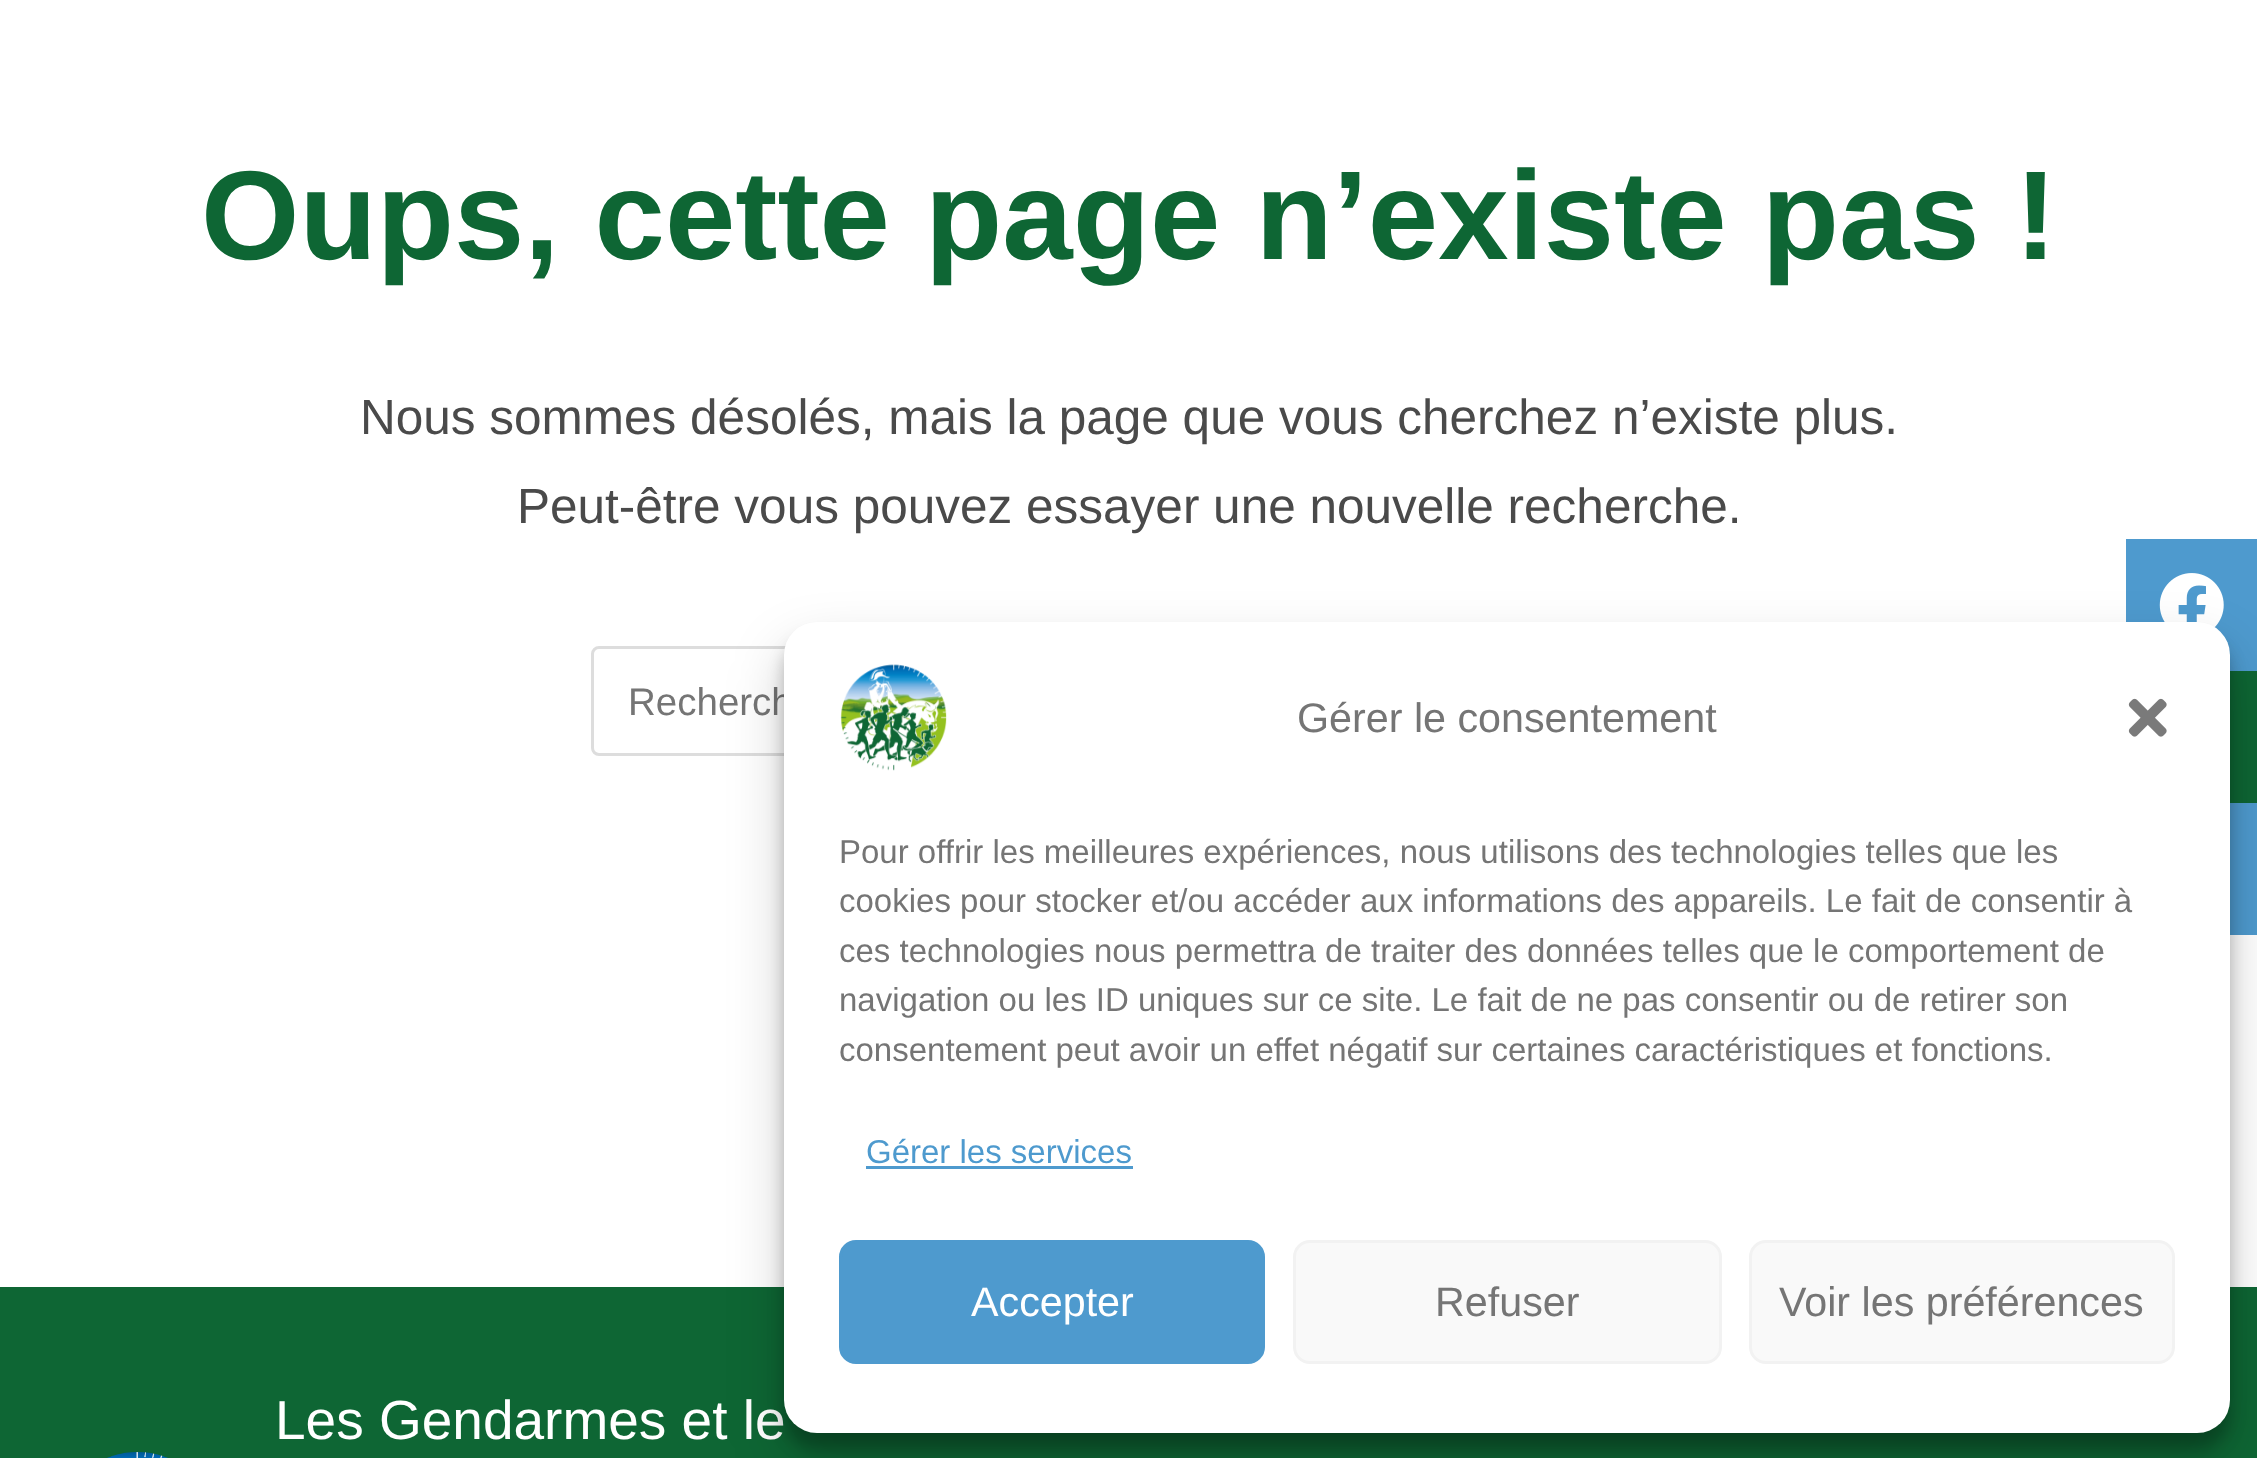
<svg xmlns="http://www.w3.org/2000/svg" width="2257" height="1458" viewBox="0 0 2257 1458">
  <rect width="100%" height="100%" fill="rgb(255,255,255)"/>
  <text x="201" y="259" font-family="Liberation Sans" font-size="126.5" font-weight="bold" fill="rgb(14,102,52)">Oups, cette page n’existe pas !</text>
  <g font-family="Liberation Sans" font-size="49.5" fill="rgb(74,74,74)">
    <text x="360" y="434">Nous sommes désolés, mais la page que vous cherchez n’existe plus.</text>
    <text x="517" y="523">Peut-être vous pouvez essayer une nouvelle recherche.</text>
  </g>
  <rect x="592.5" y="647.5" width="1070" height="107" rx="6.5" fill="none" stroke="rgb(221,221,221)" stroke-width="3"/>
  <text x="628" y="715" font-family="Liberation Sans" font-size="38.5" fill="rgb(117,117,117)">Recherch</text>
  <rect x="2126" y="539" width="131" height="132" fill="rgb(78,154,206)"/>
  <image x="2159" y="573" width="65" height="55" href="pic1.png"/>
  <rect x="2230" y="671" width="27" height="132" fill="rgb(14,102,52)"/>
  <rect x="2230" y="803" width="27" height="132" fill="rgb(78,154,206)"/>
  <rect x="0" y="1287" width="2257" height="171" fill="rgb(14,102,52)"/>
  <text x="275" y="1439" font-family="Liberation Sans" font-size="55" fill="rgb(255,255,255)">Les Gendarmes et le</text>
  <image x="107" y="1452" width="61" height="6" href="pic2.png"/>
  <rect x="784" y="638" width="1446" height="811" rx="33" fill="rgba(0,0,0,0.23)" filter="blur(8px)"/>
  <rect x="784" y="649" width="1446" height="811" rx="33" fill="rgba(0,0,0,0.19)" filter="blur(27.5px)"/>
  <rect x="784" y="622" width="1446" height="811" rx="33" fill="rgb(255,255,255)"/>
  <image x="840" y="664" width="107" height="107" href="pic3.png"/>
  <text x="1297" y="732" font-family="Liberation Sans" font-size="41.25" fill="rgb(117,117,117)">Gérer le consentement</text>
  <image x="2128" y="698" width="39" height="39" href="pic4.png"/>
  <g font-family="Liberation Sans" font-size="33" fill="rgb(117,117,117)">
    <text>
      <tspan x="839" y="863">Pour offrir les meilleures expériences, nous utilisons des technologies telles que les</tspan>
      <tspan x="839" y="912">cookies pour stocker et/ou accéder aux informations des appareils. Le fait de consentir à</tspan>
      <tspan x="839" y="962">ces technologies nous permettra de traiter des données telles que le comportement de</tspan>
      <tspan x="839" y="1011">navigation ou les ID uniques sur ce site. Le fait de ne pas consentir ou de retirer son</tspan>
      <tspan x="839" y="1061">consentement peut avoir un effet négatif sur certaines caractéristiques et fonctions.</tspan>
    </text>
  </g>
  <text x="866" y="1163" font-family="Liberation Sans" font-size="33" fill="rgb(78,154,206)">Gérer les services</text>
  <rect x="866" y="1166" width="267" height="3" fill="rgb(78,154,206)"/>
  <rect x="840.5" y="1241.5" width="423" height="121" rx="15.5" fill="rgb(78,154,206)" stroke="rgb(78,154,206)" stroke-width="3"/>
  <text x="971" y="1316" font-family="Liberation Sans" font-size="41.25" fill="rgb(255,255,255)">Accepter</text>
  <rect x="1294.5" y="1241.5" width="426" height="121" rx="15.5" fill="rgb(249,249,249)" stroke="rgb(242,242,242)" stroke-width="3"/>
  <text x="1435" y="1316" font-family="Liberation Sans" font-size="41.25" fill="rgb(117,117,117)">Refuser</text>
  <rect x="1750.5" y="1241.5" width="423" height="121" rx="15.5" fill="rgb(249,249,249)" stroke="rgb(242,242,242)" stroke-width="3"/>
  <text x="1779" y="1316" font-family="Liberation Sans" font-size="41.25" fill="rgb(117,117,117)">Voir les préférences</text>
</svg>
